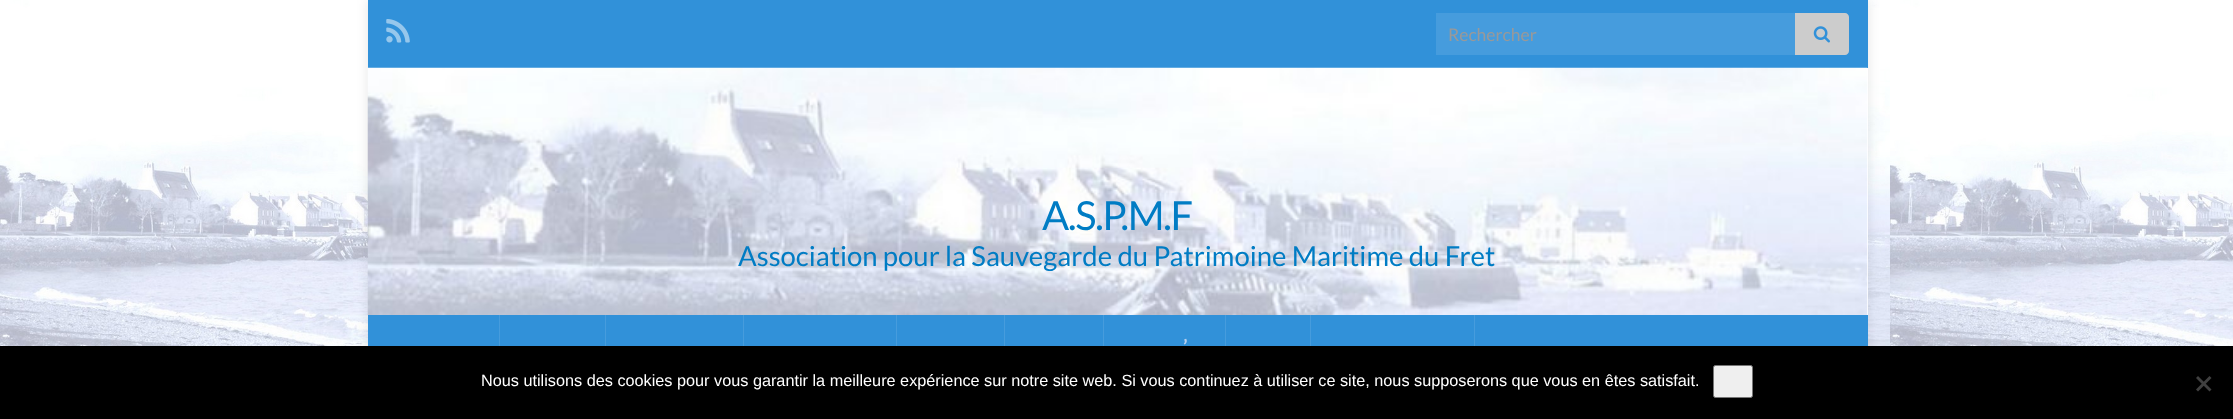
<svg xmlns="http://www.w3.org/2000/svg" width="2233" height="419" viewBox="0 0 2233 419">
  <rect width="100%" height="100%" fill="rgb(255,255,255)"/>
  <image x="0" y="0" width="2233" height="346" href="pic1.png"/>
  <rect x="368" y="0" width="1500" height="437" fill="rgba(0,0,0,0.1)" filter="blur(6px)"/>
  <rect x="368" y="0" width="1500" height="68" fill="rgb(49,145,217)"/>
  <image x="386" y="19" width="24" height="24" href="pic2.png"/>
  <rect x="1436" y="13" width="359" height="42" fill="rgb(70,156,221)"/>
  <text x="1448" y="41" font-family="Lato" font-size="17.5" fill="rgb(153,153,153)">Rechercher</text>
  <path d="M1795 13H1845C1847 13 1849 15 1849 17V51C1849 53 1847 55 1845 55H1795Z" fill="rgb(204,204,204)"/>
  <image x="1813" y="26" width="17" height="17" href="pic3.png"/>
  <rect x="1867" y="68" width="1" height="247" fill="rgb(255,255,255)"/>
  <image x="367" y="67" width="1501" height="248" href="pic4.png"/>
  <rect x="368" y="315" width="1500" height="31" fill="rgb(49,145,217)"/>
  <text x="1042" y="230" font-family="Lato" font-size="40" letter-spacing="-1.25" fill="rgb(0,124,196)">A.S.P.M.F</text>
  <text x="738" y="266" font-family="Lato" font-size="27.5" fill="rgb(0,124,196)">Association pour la Sauvegarde du Patrimoine Maritime du Fret</text>
  <rect x="499" y="315" width="1" height="31" fill="rgb(70,156,221)"/>
  <rect x="605" y="315" width="1" height="31" fill="rgb(70,156,221)"/>
  <rect x="743" y="315" width="1" height="31" fill="rgb(70,156,221)"/>
  <rect x="896" y="315" width="1" height="31" fill="rgb(70,156,221)"/>
  <rect x="1004" y="315" width="1" height="31" fill="rgb(70,156,221)"/>
  <rect x="1103" y="315" width="1" height="31" fill="rgb(70,156,221)"/>
  <rect x="1225" y="315" width="1" height="31" fill="rgb(70,156,221)"/>
  <text x="1183" y="354" font-family="Lato" font-size="20" font-weight="bold" fill="rgb(184,207,238)">’</text>
  <rect x="1310" y="315" width="1" height="31" fill="rgb(70,156,221)"/>
  <rect x="1474" y="315" width="1" height="31" fill="rgb(70,156,221)"/>
  <rect x="0" y="346" width="2233" height="73" fill="rgb(0,0,0)"/>
  <text x="481" y="386" font-family="Liberation Sans" font-size="16.25" fill="rgb(255,255,255)">Nous utilisons des cookies pour vous garantir la meilleure expérience sur notre site web. Si vous continuez à utiliser ce site, nous supposerons que vous en êtes satisfait.</text>
  <rect x="1713.5" y="365.5" width="39" height="32" rx="2" fill="rgb(239,239,239)" stroke="rgb(118,118,118)"/>
  <path d="M2209.5 376L2211.5 378L2198 391.5L2196 389.5Z" fill="rgb(64,64,64)"/>
  <path d="M2196 378L2198 376L2211.5 389.5L2209.5 391.5Z" fill="rgb(64,64,64)"/>
</svg>
